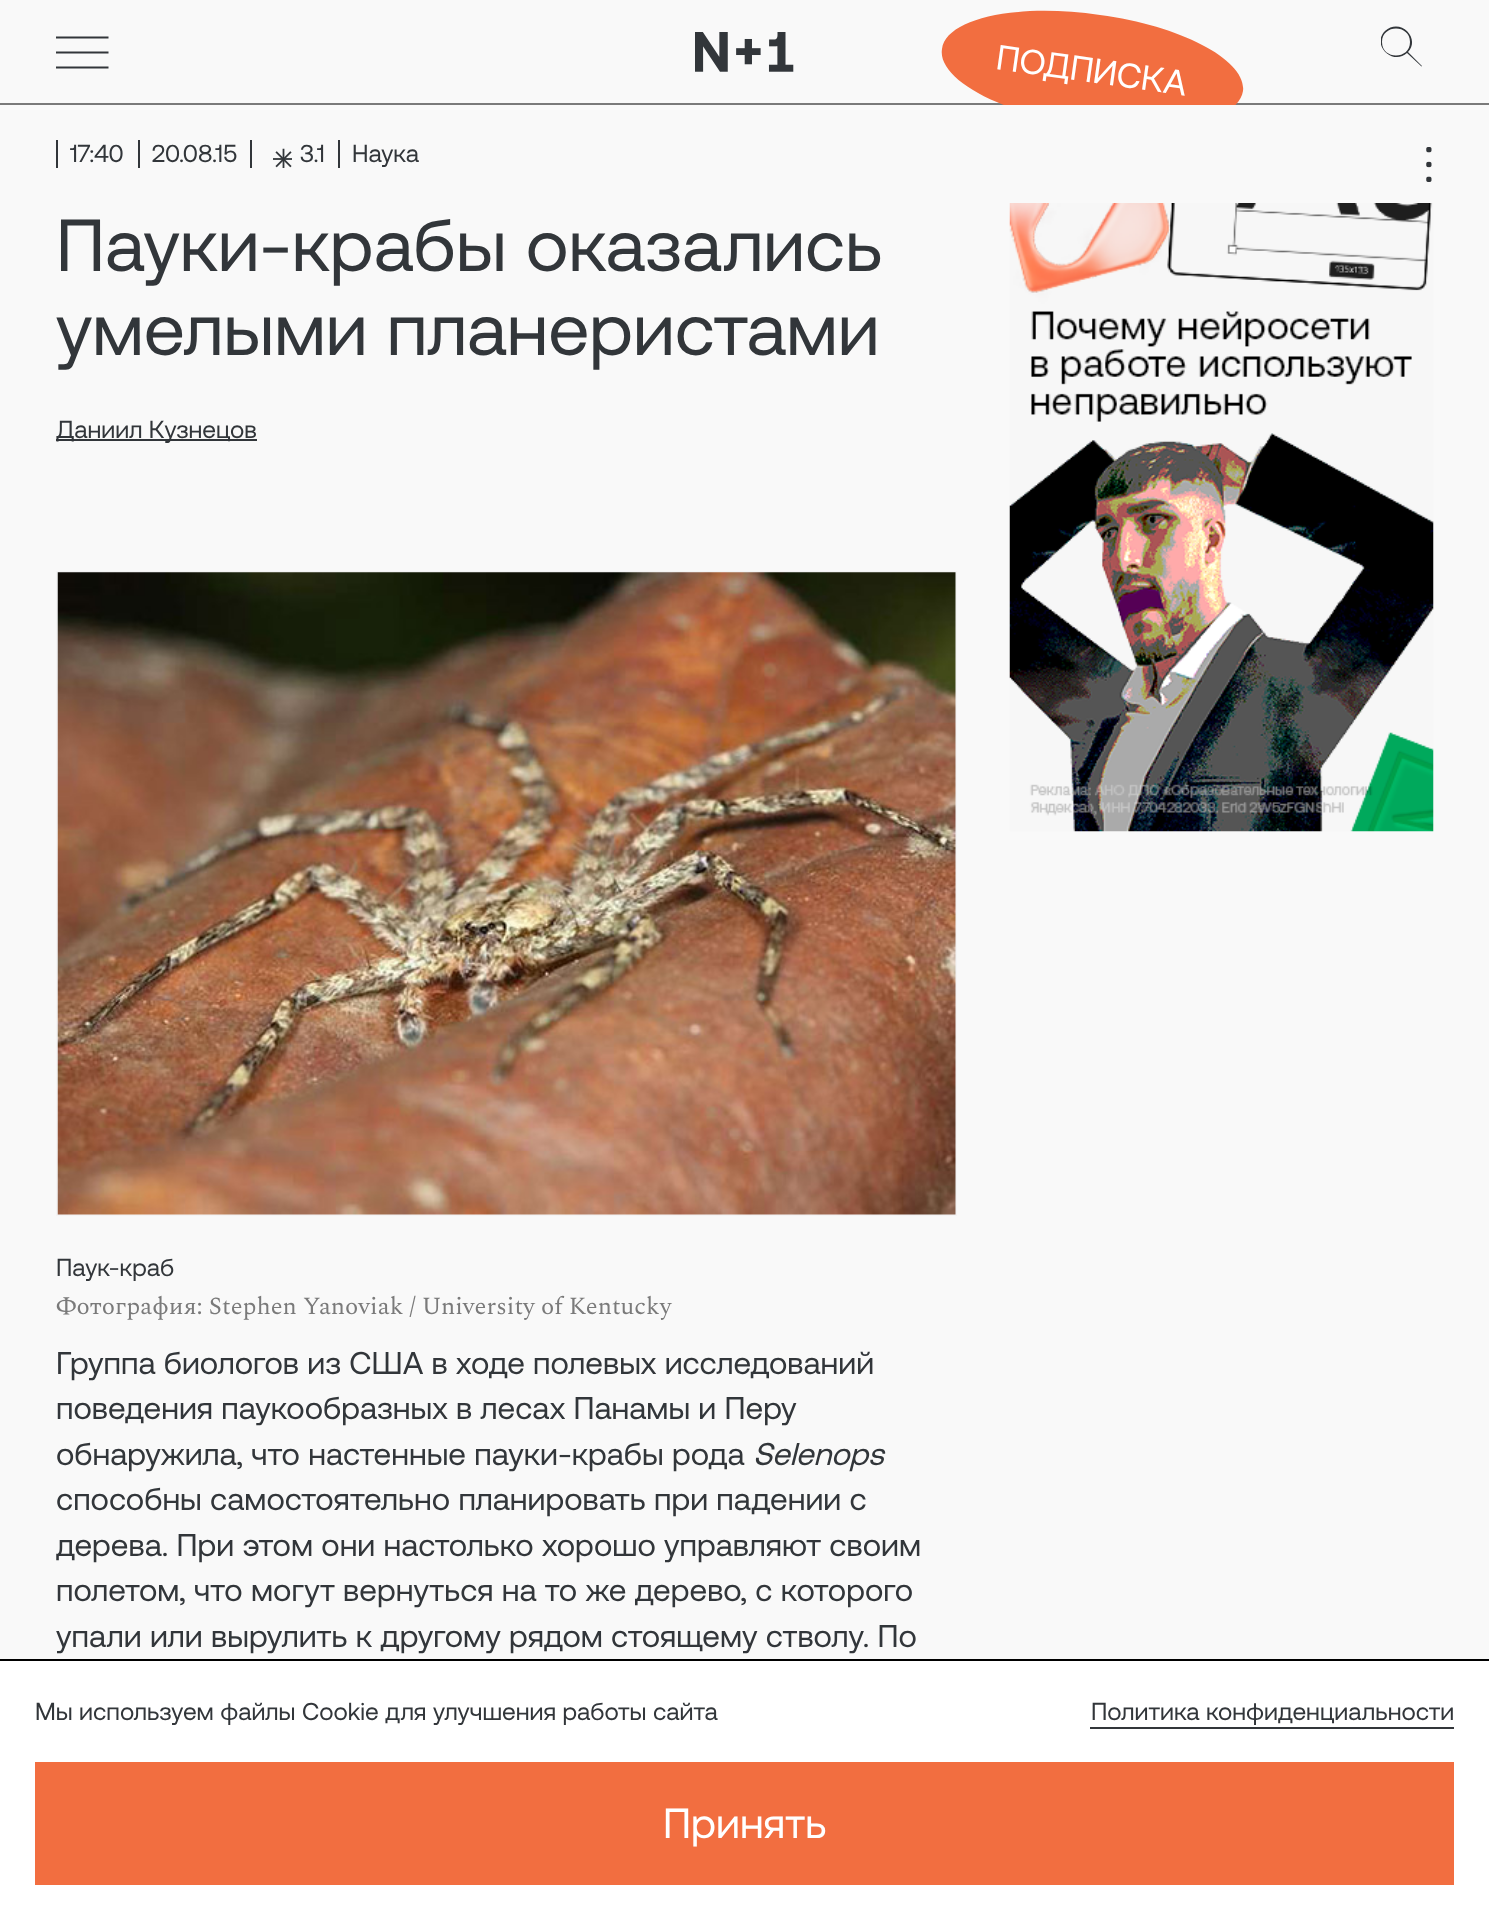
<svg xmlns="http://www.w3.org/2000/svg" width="1489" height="1919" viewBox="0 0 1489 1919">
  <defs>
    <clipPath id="clip1"><rect x="940" y="2" width="304" height="103"/></clipPath>
    <clipPath id="clip2"><rect x="1381" y="26" width="52" height="53"/></clipPath>
  </defs>
  <rect width="100%" height="100%" fill="rgb(249,249,249)"/>
  <rect x="0" y="103" width="1489" height="2" fill="rgb(122,122,122)"/>
  <path d="M56 37.5H108.5M56 67.5H108.5M56 52.5H108.5" fill="none" stroke="rgb(50,54,58)" stroke-width="1.8"/>
  <image x="695" y="32" width="99" height="40" href="pic1.png"/>
  <g clip-path="url(#clip1)">
    <path d="M1100 15C1183 26 1247 61 1243 91C1238 122 1168 137 1084 125C1001 114 937 79 942 49C946 18 1017 3 1100 15Z" fill="rgb(242,110,64)"/>
  </g>
  <text x="995" y="69" transform="rotate(8 995 69)" font-family="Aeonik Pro" font-size="35" fill="rgb(255,255,255)">ПОДПИСКА</text>
  <g clip-path="url(#clip2)">
    <path d="M1410 42C1410 60 1382 60 1382 42C1382 24 1410 24 1410 42ZM1407 53C1393 66 1371 45 1385 31C1400 17 1421 38 1408 52L1422 66C1422 66 1421 67 1421 66Z" fill="rgb(50,54,58)" fill-rule="evenodd"/>
  </g>
  <rect x="56" y="140" width="2" height="28" fill="rgb(50,54,58)"/>
  <text x="70" y="162" font-family="Aeonik Pro" font-size="24.5" fill="rgb(50,54,58)">17:40</text>
  <rect x="138" y="140" width="2" height="28" fill="rgb(50,54,58)"/>
  <text x="152" y="162" font-family="Aeonik Pro" font-size="24.5" fill="rgb(50,54,58)">20.08.15</text>
  <rect x="250" y="140" width="2" height="28" fill="rgb(50,54,58)"/>
  <image x="273" y="148" width="19" height="20" href="pic2.png"/>
  <text x="300" y="162" font-family="Aeonik Pro" font-size="24.5" fill="rgb(50,54,58)">3.1</text>
  <rect x="338" y="140" width="2" height="28" fill="rgb(50,54,58)"/>
  <text x="352" y="162" font-family="Aeonik Pro" font-size="24.5" fill="rgb(50,54,58)">Наука</text>
  <image x="1426" y="147" width="6" height="35" href="pic3.png"/>
  <g font-family="Aeonik Pro" font-size="73.5" fill="rgb(50,54,58)">
    <text>
      <tspan x="56" y="271">Пауки-крабы оказались</tspan>
      <tspan x="56" y="355">умелыми планеристами</tspan>
    </text>
  </g>
  <rect x="56" y="439" width="201" height="2" fill="rgb(50,54,58)"/>
  <text x="56" y="438" font-family="Aeonik Pro" font-size="24.5" fill="rgb(50,54,58)">Даниил Кузнецов</text>
  <rect x="56" y="571" width="901" height="645" fill="rgb(244,244,245)"/>
  <image x="57" y="572" width="899" height="643" href="pic4.png"/>
  <text x="56" y="1276" font-family="Aeonik Pro" font-size="24.5" fill="rgb(50,54,58)">Паук-краб</text>
  <text x="56" y="1314" font-family="Spectral" font-size="24.5" fill="rgb(122,122,122)">Фотография: Stephen Yanoviak / University of Kentucky</text>
  <g font-family="Aeonik Pro" font-size="31.5" fill="rgb(50,54,58)">
    <text>
      <tspan x="56" y="1374">Группа биологов из США в ходе полевых исследований</tspan>
      <tspan x="56" y="1419">поведения паукообразных в лесах Панамы и Перу</tspan>
      <tspan x="56" y="1465">обнаружила, что настенные пауки-крабы рода</tspan>
    </text>
  </g>
  <text x="753" y="1465" font-family="Aeonik Pro" font-size="31.5" font-style="italic" fill="rgb(50,54,58)">Selenops</text>
  <g font-family="Aeonik Pro" font-size="31.5" fill="rgb(50,54,58)">
    <text>
      <tspan x="56" y="1510">способны самостоятельно планировать при падении с</tspan>
      <tspan x="56" y="1556">дерева. При этом они настолько хорошо управляют своим</tspan>
      <tspan x="56" y="1601">полетом, что могут вернуться на то же дерево, с которого</tspan>
      <tspan x="56" y="1647">упали или вырулить к другому рядом стоящему стволу. По</tspan>
    </text>
  </g>
  <image x="1009" y="203" width="425" height="629" href="pic5.png"/>
  <rect x="0" y="1661" width="1489" height="258" fill="rgb(255,255,255)"/>
  <rect x="0" y="1659" width="1489" height="2" fill="rgb(0,0,0)"/>
  <g font-family="Aeonik Pro" font-size="24.5" fill="rgb(50,54,58)">
    <text x="35" y="1720">Мы используем файлы Cookie для улучшения работы сайта</text>
    <text x="1091" y="1720">Политика конфиденциальности</text>
  </g>
  <rect x="1090" y="1727" width="364" height="2" fill="rgb(50,54,58)"/>
  <rect x="35" y="1762" width="1419" height="123" fill="rgb(242,110,64)"/>
  <text x="663" y="1838" font-family="Aeonik Pro" font-size="42" fill="rgb(255,255,255)">Принять</text>
</svg>
